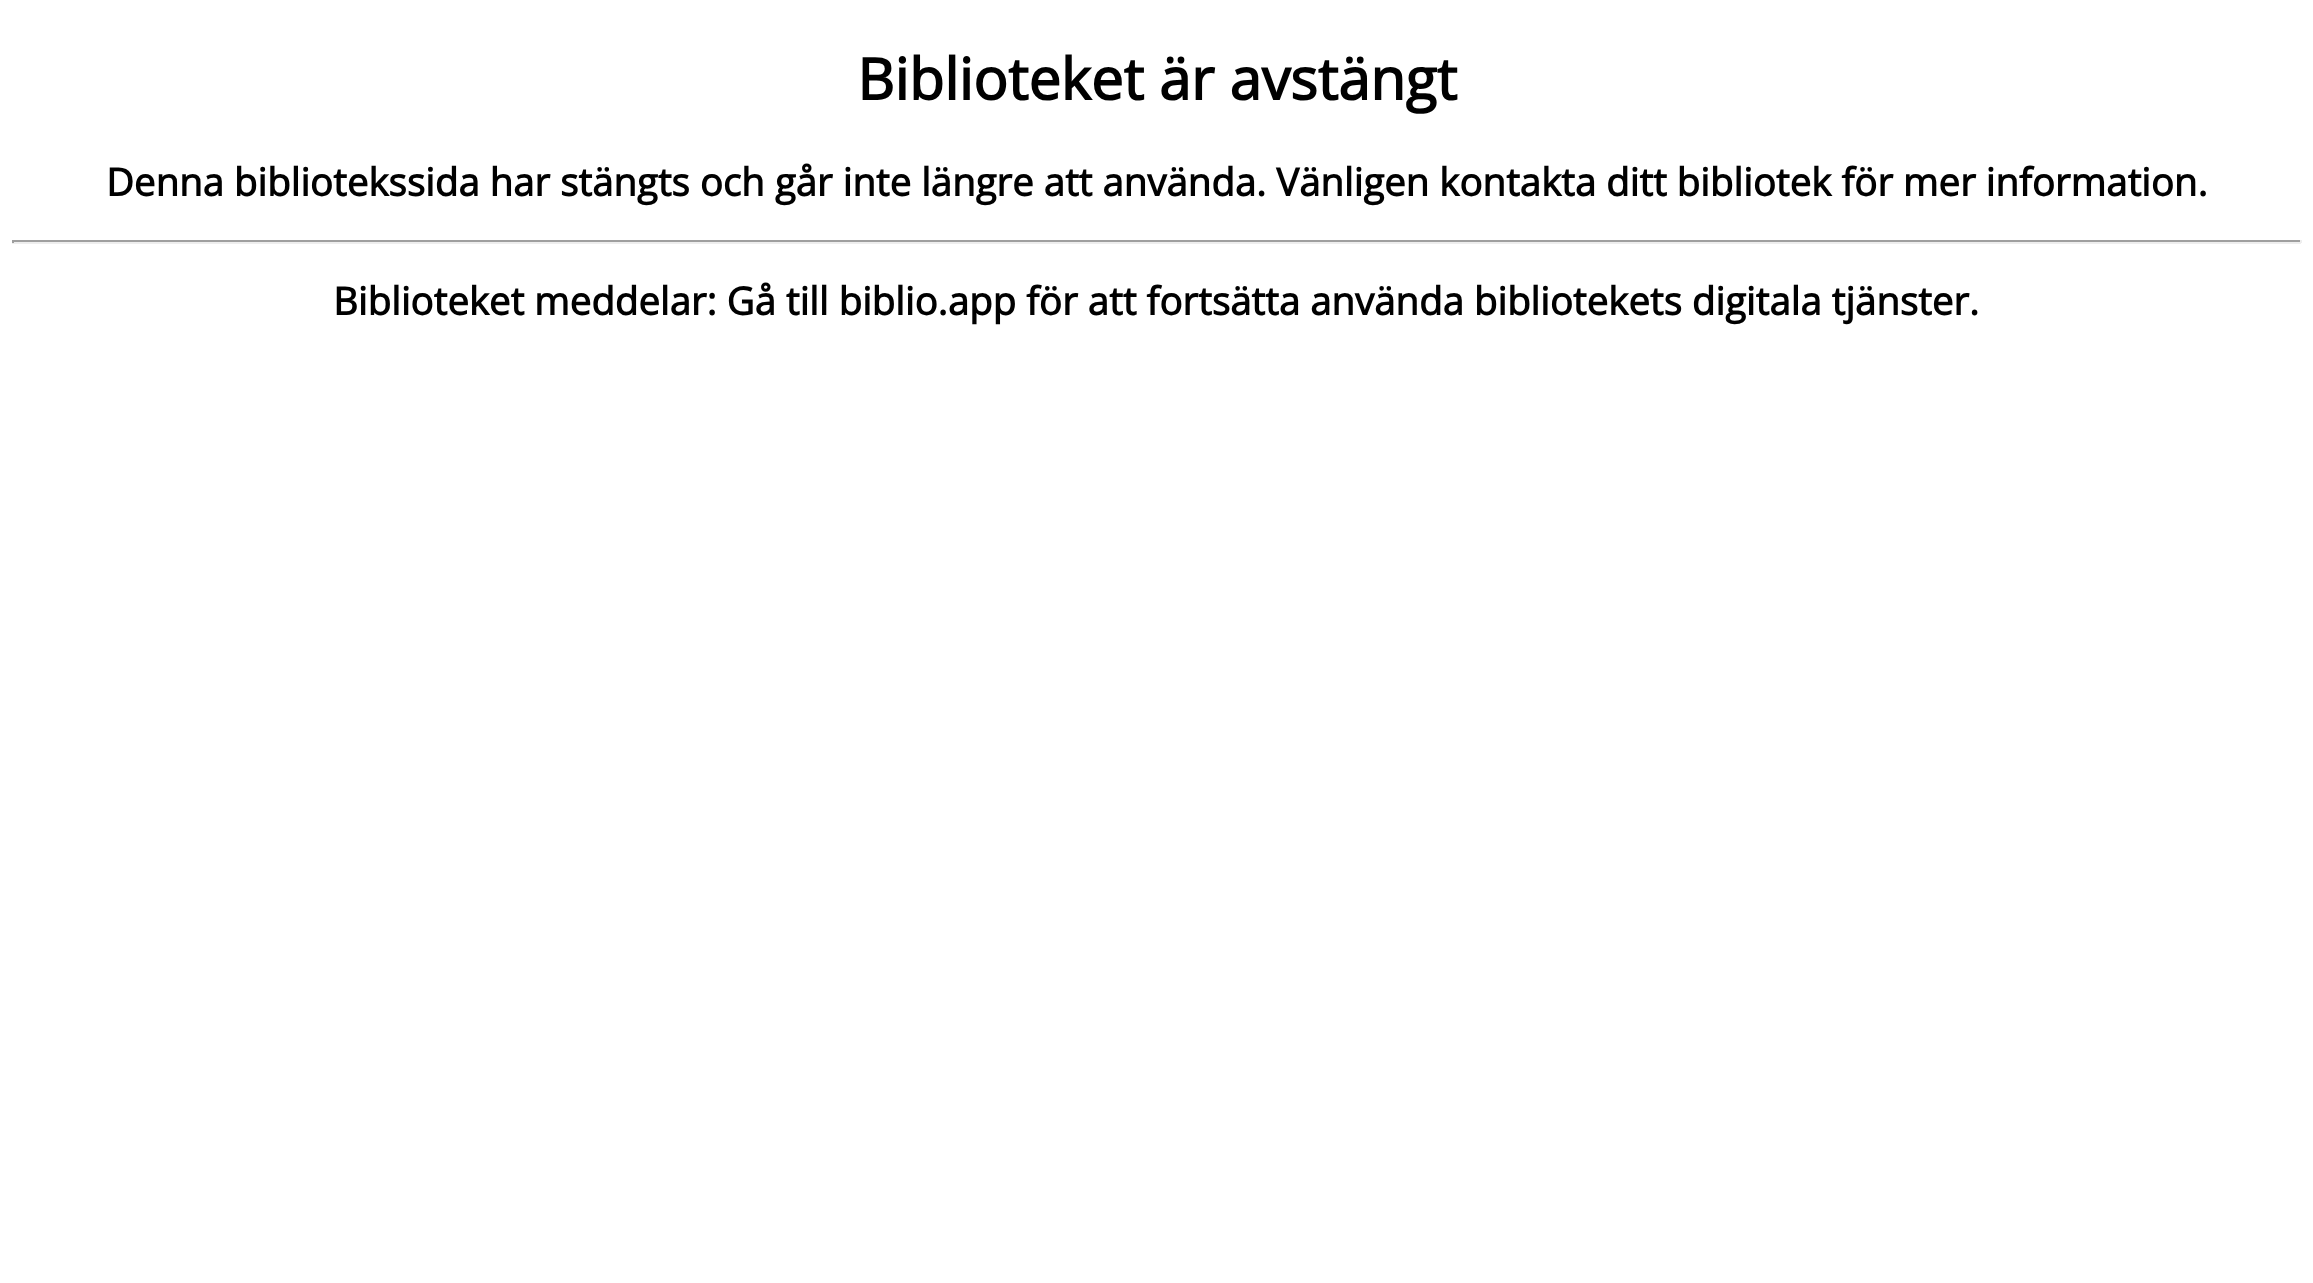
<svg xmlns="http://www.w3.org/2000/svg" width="2313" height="1283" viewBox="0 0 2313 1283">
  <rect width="100%" height="100%" fill="rgb(255,255,255)"/>
  <text x="857" y="100" font-family="Open Sans" font-size="57.6" font-weight="bold" fill="rgb(0,0,0)">Biblioteket är avstängt</text>
  <text x="106" y="196" font-family="Open Sans" font-size="38.4" font-weight="bold" fill="rgb(0,0,0)">Denna bibliotekssida har stängts och går inte längre att använda. Vänligen kontakta ditt bibliotek för mer information.</text>
  <rect x="12" y="240" width="2289" height="2" fill="rgb(159,159,159)"/>
  <rect x="2300" y="240" width="2" height="3" fill="rgb(238,238,238)"/>
  <rect x="12" y="242" width="2289" height="2" fill="rgb(238,238,238)"/>
  <rect x="12" y="240" width="2" height="3" fill="rgb(159,159,159)"/>
  <text x="333" y="315" font-family="Open Sans" font-size="38.4" font-weight="bold" fill="rgb(0,0,0)">Biblioteket meddelar: Gå till biblio.app för att fortsätta använda bibliotekets digitala tjänster.</text>
</svg>
